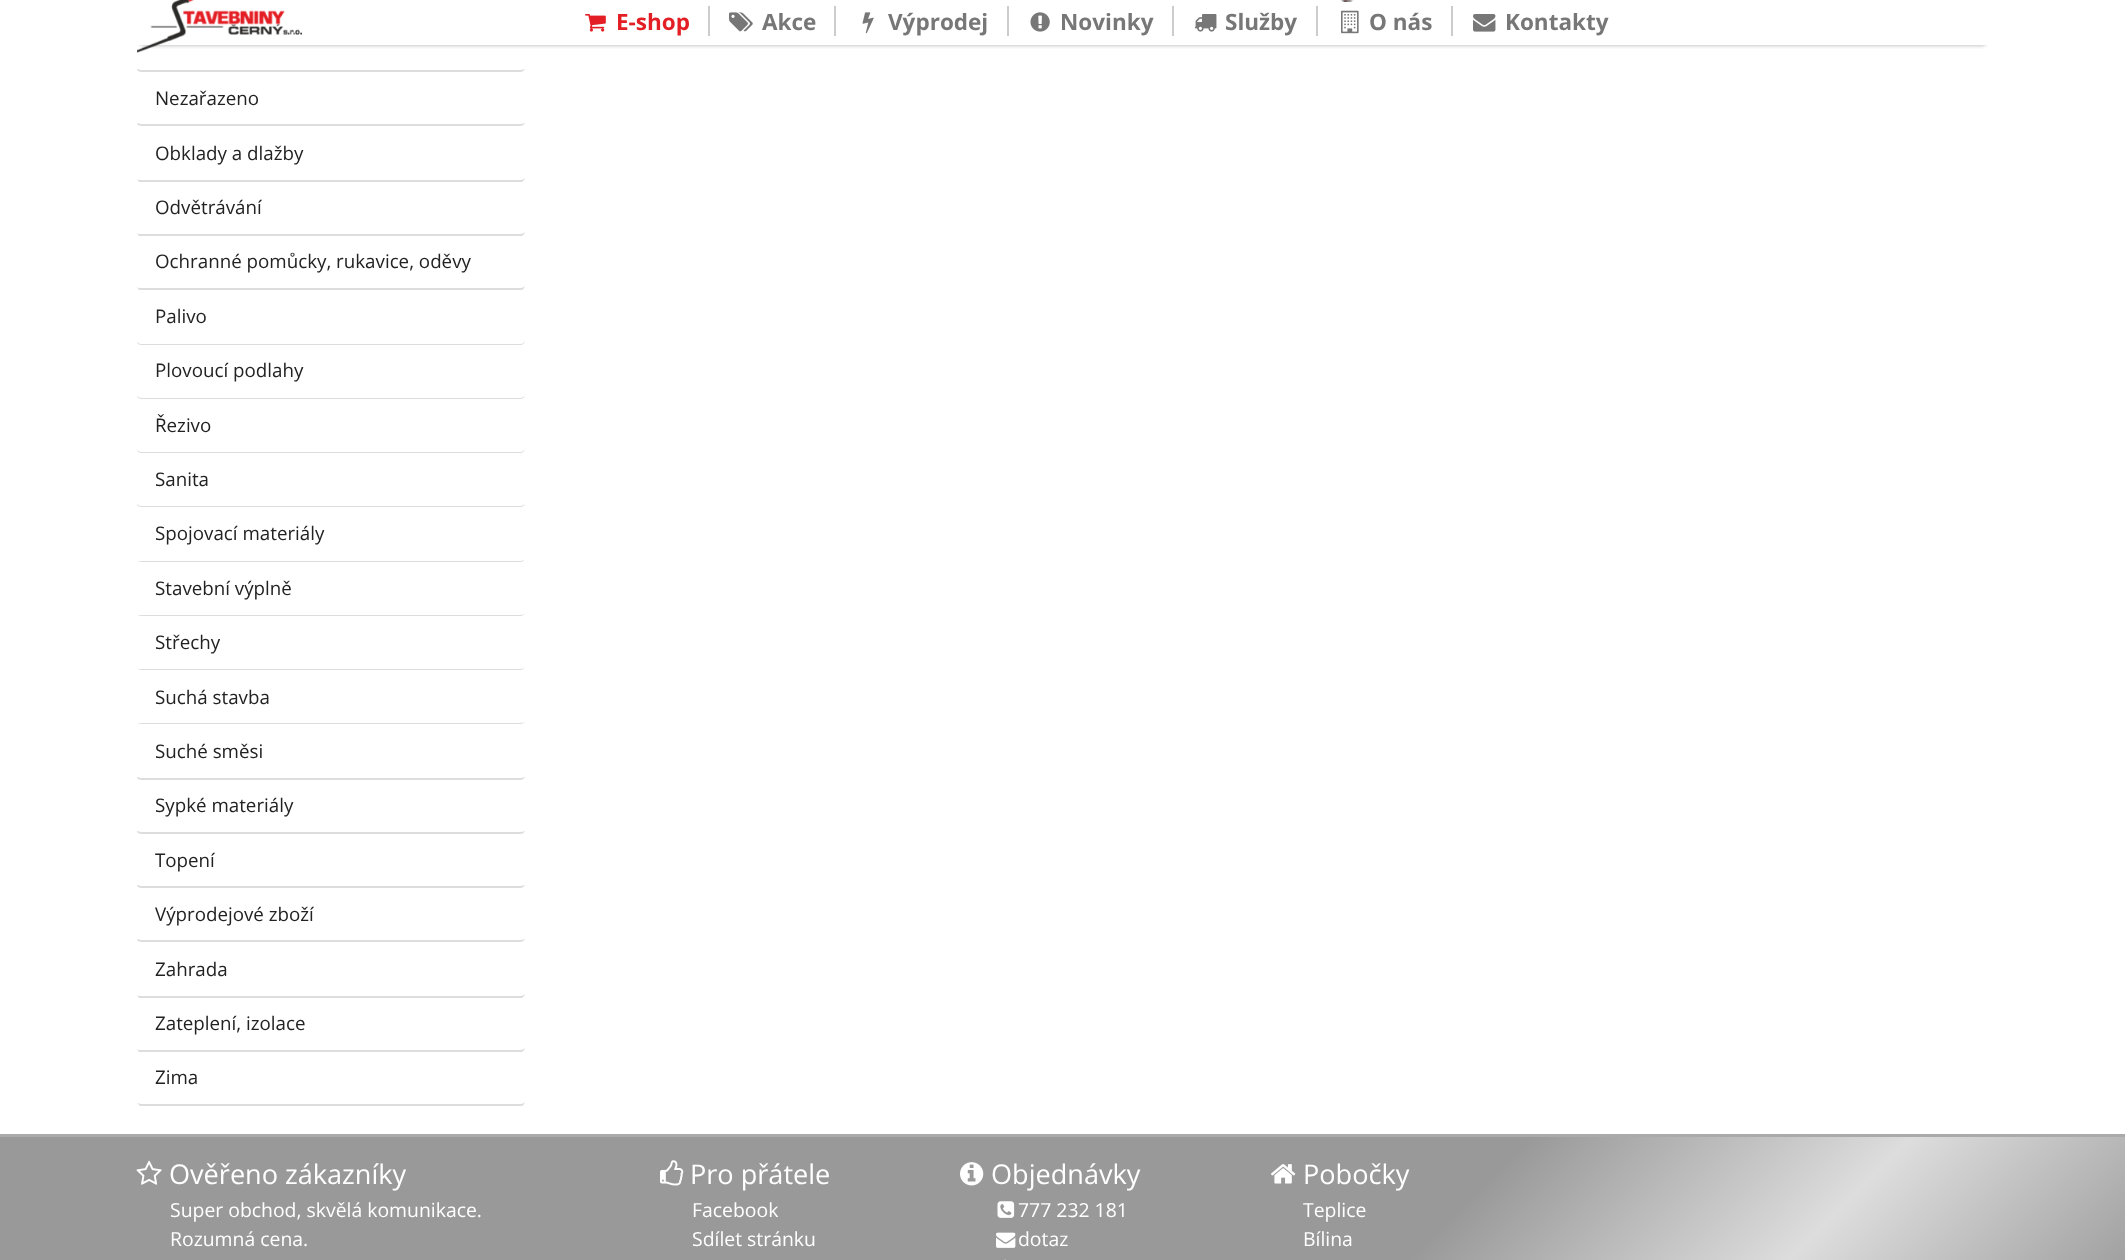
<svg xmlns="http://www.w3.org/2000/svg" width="2125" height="1260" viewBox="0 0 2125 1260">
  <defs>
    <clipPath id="clip1"><rect x="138" y="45" width="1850" height="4"/></clipPath>
    <linearGradient id="g1" gradientUnits="userSpaceOnUse" x1="425" y1="712" x2="1700" y2="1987"><stop offset="0.6" stop-color="rgb(153,153,153)"/><stop offset="0.75" stop-color="rgb(221,221,221)"/><stop offset="0.9" stop-color="rgb(153,153,153)"/></linearGradient>
  </defs>
  <rect width="100%" height="100%" fill="rgb(255,255,255)"/>
  <g clip-path="url(#clip1)">
    <rect x="141" y="-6" width="1844" height="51" fill="rgb(170,170,170)" filter="blur(2px)"/>
  </g>
  <image x="137" y="0" width="165" height="53" href="pic1.png"/>
  <image x="1340" y="0" width="14" height="2" href="pic2.png"/>
  <rect x="708" y="6" width="2" height="30" fill="rgb(204,204,204)"/>
  <image x="585" y="14" width="21" height="18" href="pic3.png"/>
  <text x="616" y="30" font-family="Open Sans" font-size="22.5" font-weight="bold" fill="rgb(227,30,36)">E-shop</text>
  <rect x="834" y="6" width="2" height="30" fill="rgb(204,204,204)"/>
  <image x="729" y="12" width="24" height="20" href="pic4.png"/>
  <text x="762" y="30" font-family="Open Sans" font-size="22.5" font-weight="bold" fill="rgb(119,119,119)">Akce</text>
  <rect x="1007" y="6" width="2" height="30" fill="rgb(204,204,204)"/>
  <image x="862" y="12" width="12" height="22" href="pic5.png"/>
  <text x="888" y="30" font-family="Open Sans" font-size="22.5" font-weight="bold" fill="rgb(119,119,119)">Výprodej</text>
  <rect x="1172" y="6" width="2" height="30" fill="rgb(204,204,204)"/>
  <image x="1030" y="12" width="20" height="20" href="pic6.png"/>
  <text x="1060" y="30" font-family="Open Sans" font-size="22.5" font-weight="bold" fill="rgb(119,119,119)">Novinky</text>
  <rect x="1316" y="6" width="2" height="30" fill="rgb(204,204,204)"/>
  <image x="1194" y="14" width="23" height="18" href="pic7.png"/>
  <text x="1225" y="30" font-family="Open Sans" font-size="22.5" font-weight="bold" fill="rgb(119,119,119)">Služby</text>
  <rect x="1451" y="6" width="2" height="30" fill="rgb(204,204,204)"/>
  <image x="1341" y="10" width="18" height="24" href="pic8.png"/>
  <text x="1369" y="30" font-family="Open Sans" font-size="22.5" font-weight="bold" fill="rgb(119,119,119)">O nás</text>
  <image x="1473" y="14" width="23" height="18" href="pic9.png"/>
  <text x="1505" y="30" font-family="Open Sans" font-size="22.5" font-weight="bold" fill="rgb(119,119,119)">Kontakty</text>
  <path d="M137 70C138 71 140 72 141 72H520C523 72 525 70 525 68C525 69 523 70 520 70H141L137 69Z" fill="rgb(221,221,221)"/>
  <path d="M137 124C138 125 140 126 141 126H520C523 126 525 124 525 122C525 123 523 124 520 124H141L137 123Z" fill="rgb(221,221,221)"/>
  <text x="155" y="105" font-family="Open Sans" font-size="18.75" fill="rgb(34,34,34)">Nezařazeno</text>
  <path d="M137 179L139 182H522C524 181 525 179 525 177C525 179 523 180 520 180H141C140 180 138 180 137 179Z" fill="rgb(221,221,221)"/>
  <text x="155" y="160" font-family="Open Sans" font-size="18.75" fill="rgb(34,34,34)">Obklady a dlažby</text>
  <path d="M137 233L139 236H522C524 235 525 233 525 231C525 233 523 234 520 234H141C140 234 138 234 137 233Z" fill="rgb(221,221,221)"/>
  <text x="155" y="214" font-family="Open Sans" font-size="18.75" fill="rgb(34,34,34)">Odvětrávání</text>
  <path d="M137 287L139 290H522C524 289 525 287 525 285C525 287 523 288 520 288H141C140 288 138 288 137 287Z" fill="rgb(221,221,221)"/>
  <text x="155" y="268" font-family="Open Sans" font-size="18.75" fill="rgb(34,34,34)">Ochranné pomůcky, rukavice, oděvy</text>
  <path d="M137 343C138 344 140 345 141 345H520C523 345 525 343 525 340C525 342 523 344 520 344H141C140 344 138 343 137 342Z" fill="rgb(221,221,221)"/>
  <text x="155" y="323" font-family="Open Sans" font-size="18.75" fill="rgb(34,34,34)">Palivo</text>
  <path d="M137 397C138 398 140 399 141 399H520C523 399 525 397 525 394C525 396 523 398 520 398H141C140 398 138 397 137 396Z" fill="rgb(221,221,221)"/>
  <text x="155" y="377" font-family="Open Sans" font-size="18.75" fill="rgb(34,34,34)">Plovoucí podlahy</text>
  <path d="M137 451C138 452 140 453 141 453H520C523 453 525 451 525 448C525 450 523 452 520 452H141C140 452 138 451 137 450Z" fill="rgb(221,221,221)"/>
  <text x="155" y="432" font-family="Open Sans" font-size="18.75" fill="rgb(34,34,34)">Řezivo</text>
  <path d="M137 505C138 506 140 507 141 507H520C523 507 525 505 525 502C525 504 523 506 520 506H141C140 506 138 505 137 504Z" fill="rgb(221,221,221)"/>
  <text x="155" y="486" font-family="Open Sans" font-size="18.75" fill="rgb(34,34,34)">Sanita</text>
  <path d="M137 560C138 561 140 562 141 562H520C523 562 525 560 525 558C525 560 523 561 520 561H141C140 561 138 561 137 560Z" fill="rgb(221,221,221)"/>
  <text x="155" y="540" font-family="Open Sans" font-size="18.75" fill="rgb(34,34,34)">Spojovací materiály</text>
  <path d="M137 614C138 615 140 616 141 616H520C523 616 525 614 525 612C525 614 523 615 520 615H141C140 615 138 615 137 614Z" fill="rgb(221,221,221)"/>
  <text x="155" y="595" font-family="Open Sans" font-size="18.75" fill="rgb(34,34,34)">Stavební výplně</text>
  <path d="M137 668C138 669 140 670 141 670H520C523 670 525 668 525 666C525 668 523 669 520 669H141C140 669 138 669 137 668Z" fill="rgb(221,221,221)"/>
  <text x="155" y="649" font-family="Open Sans" font-size="18.75" fill="rgb(34,34,34)">Střechy</text>
  <path d="M137 722C138 723 140 724 141 724H520C523 724 525 722 525 720C525 722 523 723 520 723H141C140 723 138 723 137 722Z" fill="rgb(221,221,221)"/>
  <text x="155" y="704" font-family="Open Sans" font-size="18.75" fill="rgb(34,34,34)">Suchá stavba</text>
  <path d="M137 778C138 779 140 780 141 780H520C523 780 525 778 525 776C525 777 523 778 520 778H141L137 777Z" fill="rgb(221,221,221)"/>
  <text x="155" y="758" font-family="Open Sans" font-size="18.75" fill="rgb(34,34,34)">Suché směsi</text>
  <path d="M137 832C138 833 140 834 141 834H520C523 834 525 832 525 830C525 831 523 832 520 832H141L137 831Z" fill="rgb(221,221,221)"/>
  <text x="155" y="812" font-family="Open Sans" font-size="18.75" fill="rgb(34,34,34)">Sypké materiály</text>
  <path d="M137 886C138 887 140 888 141 888H520C523 888 525 886 525 884C525 885 523 886 520 886H141L137 885Z" fill="rgb(221,221,221)"/>
  <text x="155" y="867" font-family="Open Sans" font-size="18.75" fill="rgb(34,34,34)">Topení</text>
  <path d="M137 940C138 941 140 942 141 942H520C523 942 525 940 525 938C525 939 523 940 520 940H141L137 939Z" fill="rgb(221,221,221)"/>
  <text x="155" y="921" font-family="Open Sans" font-size="18.75" fill="rgb(34,34,34)">Výprodejové zboží</text>
  <path d="M137 995L139 998H522C524 997 525 995 525 993C525 995 523 996 520 996H141C140 996 138 996 137 995Z" fill="rgb(221,221,221)"/>
  <text x="155" y="976" font-family="Open Sans" font-size="18.75" fill="rgb(34,34,34)">Zahrada</text>
  <path d="M137 1049L139 1052H522C524 1051 525 1049 525 1047C525 1049 523 1050 520 1050H141C140 1050 138 1050 137 1049Z" fill="rgb(221,221,221)"/>
  <text x="155" y="1030" font-family="Open Sans" font-size="18.75" fill="rgb(34,34,34)">Zateplení, izolace</text>
  <path d="M525 1101C525 1103 524 1105 522 1106H140C139 1105 138 1104 137 1103L141 1104H520C523 1104 525 1103 525 1101Z" fill="rgb(221,221,221)"/>
  <text x="155" y="1084" font-family="Open Sans" font-size="18.75" fill="rgb(34,34,34)">Zima</text>
  <rect x="0" y="1137" width="2125" height="123" fill="url(#g1)"/>
  <rect x="0" y="1134" width="2125" height="3" fill="rgb(170,170,170)"/>
  <image x="136" y="1160" width="26" height="25" href="pic10.png"/>
  <text x="169" y="1184" font-family="Open Sans" font-size="27.1" fill="rgb(255,255,255)">Ověřeno zákazníky</text>
  <g font-family="Open Sans" font-size="19.4" fill="rgb(255,255,255)">
    <text>
      <tspan x="170" y="1217">Super obchod, skvělá komunikace.</tspan>
      <tspan x="170" y="1246">Rozumná cena.</tspan>
    </text>
  </g>
  <image x="660" y="1160" width="24" height="26" href="pic11.png"/>
  <text x="690" y="1184" font-family="Open Sans" font-size="27.1" fill="rgb(255,255,255)">Pro přátele</text>
  <g font-family="Open Sans" font-size="19.4" fill="rgb(255,255,255)">
    <text>
      <tspan x="692" y="1217">Facebook</tspan>
      <tspan x="692" y="1246">Sdílet stránku</tspan>
    </text>
  </g>
  <image x="960" y="1162" width="24" height="24" href="pic12.png"/>
  <text x="991" y="1184" font-family="Open Sans" font-size="27.1" fill="rgb(255,255,255)">Objednávky</text>
  <image x="997" y="1201" width="18" height="17" href="pic13.png"/>
  <text x="1018" y="1217" font-family="Open Sans" font-size="19.4" fill="rgb(255,255,255)">777 232 181</text>
  <image x="996" y="1232" width="20" height="16" href="pic14.png"/>
  <text x="1018" y="1246" font-family="Open Sans" font-size="19.4" fill="rgb(255,255,255)">dotaz</text>
  <image x="1004" y="1259" width="2" height="1" href="pic15.png"/>
  <image x="1271" y="1164" width="25" height="20" href="pic16.png"/>
  <text x="1303" y="1184" font-family="Open Sans" font-size="27.1" fill="rgb(255,255,255)">Pobočky</text>
  <g font-family="Open Sans" font-size="19.4" fill="rgb(255,255,255)">
    <text>
      <tspan x="1303" y="1217">Teplice</tspan>
      <tspan x="1303" y="1246">Bílina</tspan>
    </text>
  </g>
</svg>
